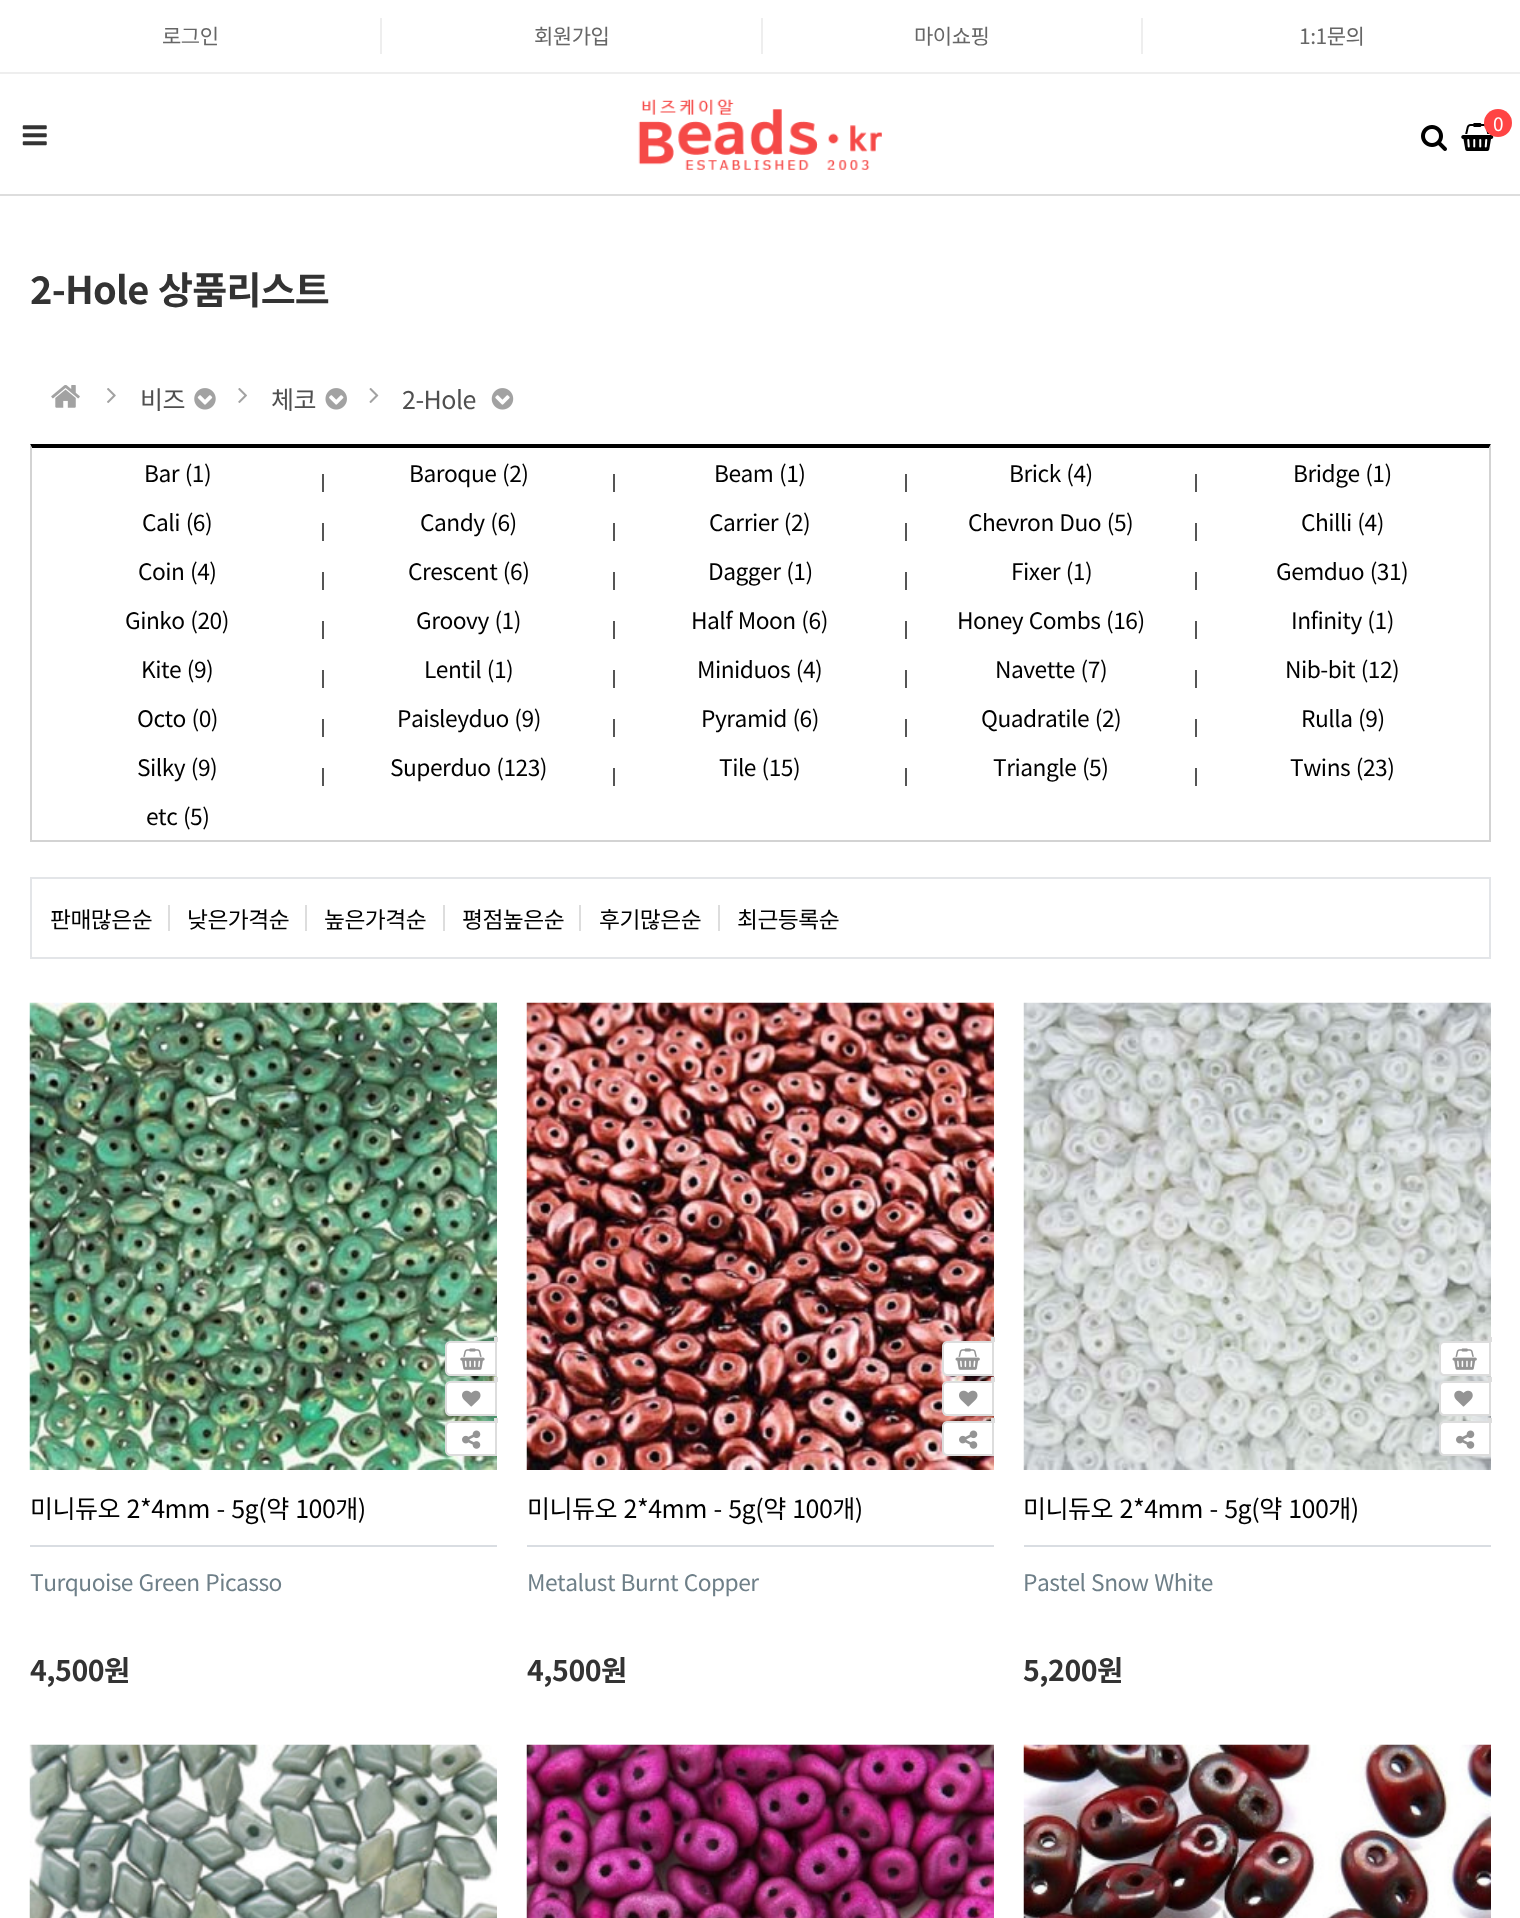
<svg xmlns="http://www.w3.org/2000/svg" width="1520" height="1918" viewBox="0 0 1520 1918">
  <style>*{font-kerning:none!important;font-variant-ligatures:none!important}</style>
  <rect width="100%" height="100%" fill="rgb(255,255,255)"/>
  <rect x="0" y="72" width="1520" height="2" fill="rgb(238,238,238)"/>
  <text x="162" y="44" font-family="Noto Sans KR" font-size="21" letter-spacing="-0.5" fill="rgb(102,102,102)">로그인</text>
  <rect x="380" y="18" width="2" height="36" fill="rgb(238,238,238)"/>
  <text x="534" y="44" font-family="Noto Sans KR" font-size="21" letter-spacing="-0.5" fill="rgb(102,102,102)">회원가입</text>
  <rect x="761" y="18" width="2" height="36" fill="rgb(238,238,238)"/>
  <text x="914" y="44" font-family="Noto Sans KR" font-size="21" letter-spacing="-0.5" fill="rgb(102,102,102)">마이쇼핑</text>
  <rect x="1141" y="18" width="2" height="36" fill="rgb(238,238,238)"/>
  <text x="1299" y="44" font-family="Noto Sans KR" font-size="21" letter-spacing="-0.5" fill="rgb(102,102,102)">1:1문의</text>
  <rect x="0" y="194" width="1520" height="2" fill="rgb(221,221,221)"/>
  <image x="638" y="99" width="244" height="71" href="pic1.png"/>
  <image x="22" y="125" width="25" height="21" href="pic2.png"/>
  <image x="1421" y="125" width="26" height="26" href="pic3.png"/>
  <image x="1461" y="123" width="33" height="28" href="pic4.png"/>
  <circle cx="1498" cy="123" r="14" fill="rgb(255,68,68)"/>
  <text x="1493" y="131" font-family="Noto Sans KR" font-size="19" letter-spacing="-0.5" fill="rgb(255,255,255)">0</text>
  <g font-family="Noto Sans KR" font-size="38" font-weight="bold" letter-spacing="-0.75" fill="rgb(51,51,51)">
    <text x="30" y="304">2-Hole</text>
    <text x="158" y="304">상품리스트</text>
  </g>
  <image x="51" y="385" width="29" height="23" href="pic5.png"/>
  <image x="107" y="388" width="9" height="15" href="pic6.png"/>
  <text x="140" y="409" font-family="Noto Sans KR" font-size="25" letter-spacing="-0.5" fill="rgb(79,79,79)">비즈</text>
  <image x="194" y="388" width="22" height="22" href="pic7.png"/>
  <image x="238" y="388" width="9" height="15" href="pic8.png"/>
  <text x="271" y="409" font-family="Noto Sans KR" font-size="25" letter-spacing="-0.5" fill="rgb(79,79,79)">체코</text>
  <image x="325" y="388" width="22" height="22" href="pic9.png"/>
  <image x="369" y="388" width="10" height="15" href="pic10.png"/>
  <text x="402" y="409" font-family="Noto Sans KR" font-size="25" letter-spacing="-0.5" fill="rgb(79,79,79)">2-Hole</text>
  <image x="491" y="388" width="23" height="22" href="pic11.png"/>
  <path d="M30 444H1491L1489 448H32Z" fill="rgb(0,0,0)"/>
  <path d="M1491 444V842L1489 840V448Z" fill="rgb(211,211,211)"/>
  <rect x="30" y="840" width="1461" height="2" fill="rgb(211,211,211)"/>
  <path d="M30 842V444L32 448V840Z" fill="rgb(211,211,211)"/>
  <text x="144" y="482" word-spacing="1" font-family="Noto Sans KR" font-size="22.75" letter-spacing="-0.5" fill="rgb(0,0,0)">Bar (1)</text>
  <rect x="322" y="474" width="2" height="18" fill="rgb(85,85,85)"/>
  <text x="409" y="482" word-spacing="1" font-family="Noto Sans KR" font-size="22.75" letter-spacing="-0.5" fill="rgb(0,0,0)">Baroque (2)</text>
  <rect x="613" y="474" width="2" height="18" fill="rgb(85,85,85)"/>
  <text x="714" y="482" word-spacing="1" font-family="Noto Sans KR" font-size="22.75" letter-spacing="-0.5" fill="rgb(0,0,0)">Beam (1)</text>
  <rect x="905" y="474" width="2" height="18" fill="rgb(85,85,85)"/>
  <text x="1009" y="482" word-spacing="1" font-family="Noto Sans KR" font-size="22.75" letter-spacing="-0.5" fill="rgb(0,0,0)">Brick (4)</text>
  <rect x="1195" y="474" width="2" height="18" fill="rgb(85,85,85)"/>
  <g font-family="Noto Sans KR" font-size="22.75" letter-spacing="-0.5" fill="rgb(0,0,0)">
    <text x="1293" y="482" word-spacing="1">Bridge (1)</text>
    <text x="142" y="531" word-spacing="1">Cali (6)</text>
  </g>
  <rect x="322" y="523" width="2" height="18" fill="rgb(85,85,85)"/>
  <text x="420" y="531" word-spacing="1" font-family="Noto Sans KR" font-size="22.75" letter-spacing="-0.5" fill="rgb(0,0,0)">Candy (6)</text>
  <rect x="613" y="523" width="2" height="18" fill="rgb(85,85,85)"/>
  <text x="709" y="531" word-spacing="1" font-family="Noto Sans KR" font-size="22.75" letter-spacing="-0.5" fill="rgb(0,0,0)">Carrier (2)</text>
  <rect x="905" y="523" width="2" height="18" fill="rgb(85,85,85)"/>
  <text x="968" y="531" word-spacing="1" font-family="Noto Sans KR" font-size="22.75" letter-spacing="-0.5" fill="rgb(0,0,0)">Chevron Duo (5)</text>
  <rect x="1195" y="523" width="2" height="18" fill="rgb(85,85,85)"/>
  <g font-family="Noto Sans KR" font-size="22.75" letter-spacing="-0.5" fill="rgb(0,0,0)">
    <text x="1301" y="531" word-spacing="1">Chilli (4)</text>
    <text x="138" y="580" word-spacing="1">Coin (4)</text>
  </g>
  <rect x="322" y="572" width="2" height="18" fill="rgb(85,85,85)"/>
  <text x="408" y="580" word-spacing="1" font-family="Noto Sans KR" font-size="22.75" letter-spacing="-0.5" fill="rgb(0,0,0)">Crescent (6)</text>
  <rect x="613" y="572" width="2" height="18" fill="rgb(85,85,85)"/>
  <text x="708" y="580" word-spacing="1" font-family="Noto Sans KR" font-size="22.75" letter-spacing="-0.5" fill="rgb(0,0,0)">Dagger (1)</text>
  <rect x="905" y="572" width="2" height="18" fill="rgb(85,85,85)"/>
  <text x="1011" y="580" word-spacing="1" font-family="Noto Sans KR" font-size="22.75" letter-spacing="-0.5" fill="rgb(0,0,0)">Fixer (1)</text>
  <rect x="1195" y="572" width="2" height="18" fill="rgb(85,85,85)"/>
  <g font-family="Noto Sans KR" font-size="22.75" letter-spacing="-0.5" fill="rgb(0,0,0)">
    <text x="1276" y="580" word-spacing="1">Gemduo (31)</text>
    <text x="125" y="629" word-spacing="1">Ginko (20)</text>
  </g>
  <rect x="322" y="621" width="2" height="18" fill="rgb(85,85,85)"/>
  <text x="416" y="629" word-spacing="1" font-family="Noto Sans KR" font-size="22.75" letter-spacing="-0.5" fill="rgb(0,0,0)">Groovy (1)</text>
  <rect x="613" y="621" width="2" height="18" fill="rgb(85,85,85)"/>
  <text x="691" y="629" word-spacing="1" font-family="Noto Sans KR" font-size="22.75" letter-spacing="-0.5" fill="rgb(0,0,0)">Half Moon (6)</text>
  <rect x="905" y="621" width="2" height="18" fill="rgb(85,85,85)"/>
  <text x="957" y="629" word-spacing="1" font-family="Noto Sans KR" font-size="22.75" letter-spacing="-0.5" fill="rgb(0,0,0)">Honey Combs (16)</text>
  <rect x="1195" y="621" width="2" height="18" fill="rgb(85,85,85)"/>
  <g font-family="Noto Sans KR" font-size="22.75" letter-spacing="-0.5" fill="rgb(0,0,0)">
    <text x="1291" y="629" word-spacing="1">Infinity (1)</text>
    <text x="141" y="678" word-spacing="1">Kite (9)</text>
  </g>
  <rect x="322" y="670" width="2" height="18" fill="rgb(85,85,85)"/>
  <text x="424" y="678" word-spacing="1" font-family="Noto Sans KR" font-size="22.75" letter-spacing="-0.5" fill="rgb(0,0,0)">Lentil (1)</text>
  <rect x="613" y="670" width="2" height="18" fill="rgb(85,85,85)"/>
  <text x="697" y="678" word-spacing="1" font-family="Noto Sans KR" font-size="22.75" letter-spacing="-0.5" fill="rgb(0,0,0)">Miniduos (4)</text>
  <rect x="905" y="670" width="2" height="18" fill="rgb(85,85,85)"/>
  <text x="995" y="678" word-spacing="1" font-family="Noto Sans KR" font-size="22.75" letter-spacing="-0.5" fill="rgb(0,0,0)">Navette (7)</text>
  <rect x="1195" y="670" width="2" height="18" fill="rgb(85,85,85)"/>
  <g font-family="Noto Sans KR" font-size="22.75" letter-spacing="-0.5" fill="rgb(0,0,0)">
    <text x="1285" y="678" word-spacing="1">Nib-bit (12)</text>
    <text x="137" y="727" word-spacing="1">Octo (0)</text>
  </g>
  <rect x="322" y="719" width="2" height="18" fill="rgb(85,85,85)"/>
  <text x="397" y="727" word-spacing="1" font-family="Noto Sans KR" font-size="22.75" letter-spacing="-0.5" fill="rgb(0,0,0)">Paisleyduo (9)</text>
  <rect x="613" y="719" width="2" height="18" fill="rgb(85,85,85)"/>
  <text x="701" y="727" word-spacing="1" font-family="Noto Sans KR" font-size="22.75" letter-spacing="-0.5" fill="rgb(0,0,0)">Pyramid (6)</text>
  <rect x="905" y="719" width="2" height="18" fill="rgb(85,85,85)"/>
  <text x="981" y="727" word-spacing="1" font-family="Noto Sans KR" font-size="22.75" letter-spacing="-0.5" fill="rgb(0,0,0)">Quadratile (2)</text>
  <rect x="1195" y="719" width="2" height="18" fill="rgb(85,85,85)"/>
  <g font-family="Noto Sans KR" font-size="22.75" letter-spacing="-0.5" fill="rgb(0,0,0)">
    <text x="1301" y="727" word-spacing="1">Rulla (9)</text>
    <text x="137" y="776" word-spacing="1">Silky (9)</text>
  </g>
  <rect x="322" y="768" width="2" height="18" fill="rgb(85,85,85)"/>
  <text x="390" y="776" word-spacing="1" font-family="Noto Sans KR" font-size="22.75" letter-spacing="-0.5" fill="rgb(0,0,0)">Superduo (123)</text>
  <rect x="613" y="768" width="2" height="18" fill="rgb(85,85,85)"/>
  <text x="719" y="776" word-spacing="1" font-family="Noto Sans KR" font-size="22.75" letter-spacing="-0.5" fill="rgb(0,0,0)">Tile (15)</text>
  <rect x="905" y="768" width="2" height="18" fill="rgb(85,85,85)"/>
  <text x="993" y="776" word-spacing="1" font-family="Noto Sans KR" font-size="22.75" letter-spacing="-0.5" fill="rgb(0,0,0)">Triangle (5)</text>
  <rect x="1195" y="768" width="2" height="18" fill="rgb(85,85,85)"/>
  <g font-family="Noto Sans KR" font-size="22.75" letter-spacing="-0.5" fill="rgb(0,0,0)">
    <text x="1290" y="776" word-spacing="1">Twins (23)</text>
    <text x="146" y="825" word-spacing="1">etc (5)</text>
  </g>
  <rect x="31" y="878" width="1459" height="80" fill="none" stroke="rgb(227,229,232)" stroke-width="2"/>
  <text x="50" y="928" font-family="Noto Sans KR" font-size="22.75" letter-spacing="-0.5" fill="rgb(0,0,0)">판매많은순</text>
  <rect x="168" y="905" width="2" height="26" fill="rgb(221,221,221)"/>
  <text x="187" y="928" font-family="Noto Sans KR" font-size="22.75" letter-spacing="-0.5" fill="rgb(0,0,0)">낮은가격순</text>
  <rect x="305" y="905" width="2" height="26" fill="rgb(221,221,221)"/>
  <text x="324" y="928" font-family="Noto Sans KR" font-size="22.75" letter-spacing="-0.5" fill="rgb(0,0,0)">높은가격순</text>
  <rect x="443" y="905" width="2" height="26" fill="rgb(221,221,221)"/>
  <text x="462" y="928" font-family="Noto Sans KR" font-size="22.75" letter-spacing="-0.5" fill="rgb(0,0,0)">평점높은순</text>
  <rect x="579" y="905" width="2" height="26" fill="rgb(221,221,221)"/>
  <text x="599" y="928" font-family="Noto Sans KR" font-size="22.75" letter-spacing="-0.5" fill="rgb(0,0,0)">후기많은순</text>
  <rect x="718" y="905" width="2" height="26" fill="rgb(221,221,221)"/>
  <text x="737" y="928" font-family="Noto Sans KR" font-size="22.75" letter-spacing="-0.5" fill="rgb(0,0,0)">최근등록순</text>
  <image x="29" y="1002" width="468" height="468" href="pic12.png"/>
  <path d="M450 1342H496V1375H450C448 1375 446 1373 446 1371V1346C446 1344 448 1342 450 1342Z" fill="rgb(255,255,255)" stroke="rgb(221,221,221)" stroke-width="2"/>
  <rect x="494" y="1337" width="4" height="5" fill="rgb(221,221,221)"/>
  <image x="460" y="1348" width="25" height="22" href="pic13.png"/>
  <path d="M450 1382H496V1415H450C448 1415 446 1413 446 1411V1386C446 1384 448 1382 450 1382Z" fill="rgb(255,255,255)" stroke="rgb(221,221,221)" stroke-width="2"/>
  <rect x="494" y="1377" width="4" height="5" fill="rgb(221,221,221)"/>
  <image x="462" y="1390" width="19" height="17" href="pic14.png"/>
  <path d="M450 1422H496V1455H450C448 1455 446 1453 446 1451V1426C446 1424 448 1422 450 1422Z" fill="rgb(255,255,255)" stroke="rgb(221,221,221)" stroke-width="2"/>
  <rect x="494" y="1418" width="4" height="5" fill="rgb(221,221,221)"/>
  <image x="462" y="1430" width="19" height="19" href="pic15.png"/>
  <rect x="30" y="1545" width="467" height="2" fill="rgb(217,221,226)"/>
  <text x="30" y="1518" word-spacing="1.5" font-family="Noto Sans KR" font-size="25" letter-spacing="-0.5" fill="rgb(0,0,0)">미니듀오 2*4mm - 5g(약 100개)</text>
  <text x="30" y="1591" word-spacing="1" font-family="Noto Sans KR" font-size="22.75" letter-spacing="-0.5" fill="rgb(110,127,136)">Turquoise Green Picasso</text>
  <text x="30" y="1681" font-family="Noto Sans KR" font-size="28.5" font-weight="bold" letter-spacing="-0.5" fill="rgb(51,51,51)">4,500원</text>
  <image x="526" y="1002" width="468" height="468" href="pic16.png"/>
  <path d="M947 1342H993V1375H947C945 1375 943 1373 943 1371V1346C943 1344 945 1342 947 1342Z" fill="rgb(255,255,255)" stroke="rgb(221,221,221)" stroke-width="2"/>
  <rect x="991" y="1337" width="4" height="5" fill="rgb(221,221,221)"/>
  <image x="955" y="1348" width="25" height="22" href="pic17.png"/>
  <path d="M947 1382H993V1415H947C945 1415 943 1413 943 1411V1386C943 1384 945 1382 947 1382Z" fill="rgb(255,255,255)" stroke="rgb(221,221,221)" stroke-width="2"/>
  <rect x="991" y="1377" width="4" height="5" fill="rgb(221,221,221)"/>
  <image x="959" y="1390" width="19" height="17" href="pic14.png"/>
  <path d="M947 1422H993V1455H947C945 1455 943 1453 943 1451V1426C943 1424 945 1422 947 1422Z" fill="rgb(255,255,255)" stroke="rgb(221,221,221)" stroke-width="2"/>
  <rect x="991" y="1418" width="4" height="5" fill="rgb(221,221,221)"/>
  <image x="959" y="1430" width="19" height="19" href="pic15.png"/>
  <rect x="527" y="1545" width="467" height="2" fill="rgb(217,221,226)"/>
  <text x="527" y="1518" word-spacing="1.5" font-family="Noto Sans KR" font-size="25" letter-spacing="-0.5" fill="rgb(0,0,0)">미니듀오 2*4mm - 5g(약 100개)</text>
  <text x="527" y="1591" word-spacing="1" font-family="Noto Sans KR" font-size="22.75" letter-spacing="-0.5" fill="rgb(110,127,136)">Metalust Burnt Copper</text>
  <text x="527" y="1681" font-family="Noto Sans KR" font-size="28.5" font-weight="bold" letter-spacing="-0.5" fill="rgb(51,51,51)">4,500원</text>
  <image x="1023" y="1002" width="468" height="468" href="pic18.png"/>
  <path d="M1444 1342H1490V1375H1444C1442 1375 1440 1373 1440 1371V1346C1440 1344 1442 1342 1444 1342Z" fill="rgb(255,255,255)" stroke="rgb(221,221,221)" stroke-width="2"/>
  <rect x="1488" y="1337" width="4" height="5" fill="rgb(221,221,221)"/>
  <image x="1452" y="1348" width="25" height="22" href="pic19.png"/>
  <path d="M1444 1382H1490V1415H1444C1442 1415 1440 1413 1440 1411V1386C1440 1384 1442 1382 1444 1382Z" fill="rgb(255,255,255)" stroke="rgb(221,221,221)" stroke-width="2"/>
  <rect x="1488" y="1377" width="4" height="5" fill="rgb(221,221,221)"/>
  <image x="1454" y="1390" width="19" height="17" href="pic20.png"/>
  <path d="M1444 1422H1490V1455H1444C1442 1455 1440 1453 1440 1451V1426C1440 1424 1442 1422 1444 1422Z" fill="rgb(255,255,255)" stroke="rgb(221,221,221)" stroke-width="2"/>
  <rect x="1488" y="1418" width="4" height="5" fill="rgb(221,221,221)"/>
  <image x="1456" y="1430" width="19" height="19" href="pic15.png"/>
  <rect x="1024" y="1545" width="467" height="2" fill="rgb(217,221,226)"/>
  <text x="1023" y="1518" word-spacing="1.5" font-family="Noto Sans KR" font-size="25" letter-spacing="-0.5" fill="rgb(0,0,0)">미니듀오 2*4mm - 5g(약 100개)</text>
  <text x="1023" y="1591" word-spacing="1" font-family="Noto Sans KR" font-size="22.75" letter-spacing="-0.5" fill="rgb(110,127,136)">Pastel Snow White</text>
  <text x="1023" y="1681" font-family="Noto Sans KR" font-size="28.5" font-weight="bold" letter-spacing="-0.5" fill="rgb(51,51,51)">5,200원</text>
  <image x="29" y="1744" width="468" height="174" href="pic21.png"/>
  <image x="526" y="1744" width="468" height="174" href="pic22.png"/>
  <image x="1023" y="1744" width="468" height="174" href="pic23.png"/>
</svg>
